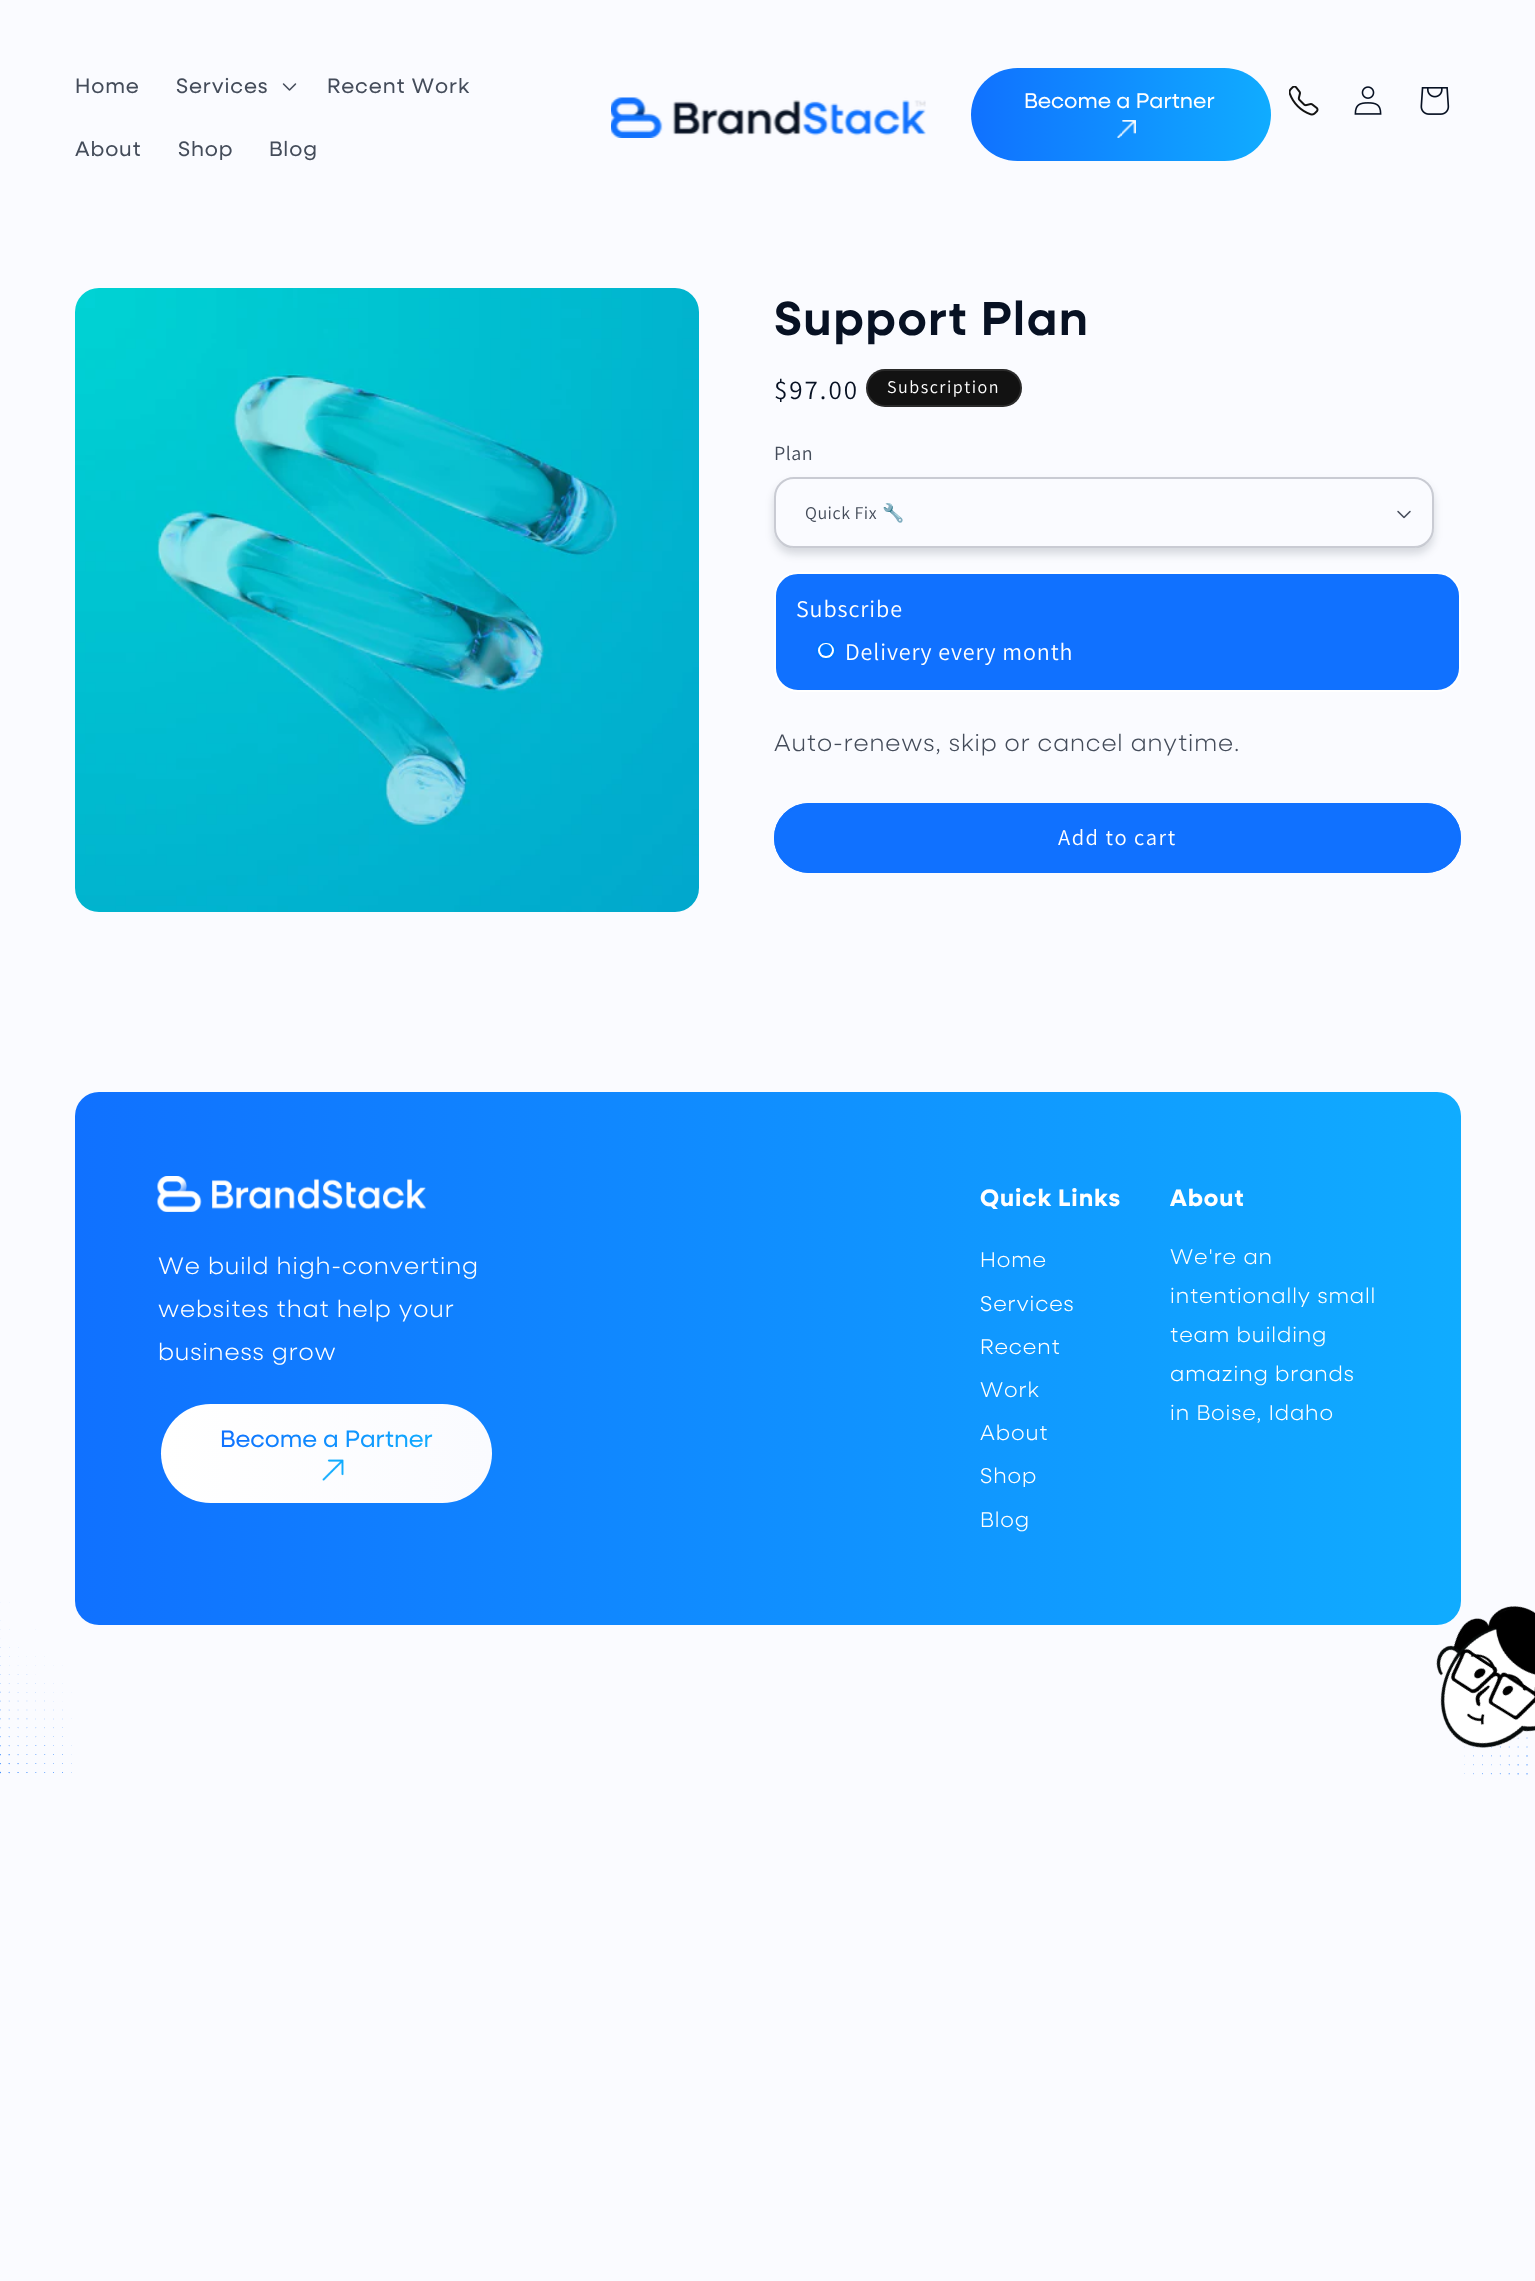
<svg xmlns="http://www.w3.org/2000/svg" width="1535" height="2281" viewBox="0 0 1535 2281">
  <style>*{font-kerning:none!important;font-variant-ligatures:none!important}</style>
  <defs>
    <linearGradient id="g1" gradientUnits="userSpaceOnUse" x1="971" y1="114" x2="1271" y2="114"><stop offset="0" stop-color="rgb(16,113,255)"/><stop offset="1" stop-color="rgb(16,172,255)"/></linearGradient>
    <clipPath id="clip1"><path d="M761 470H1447V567H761ZM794 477H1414C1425 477 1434 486 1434 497V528C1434 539 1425 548 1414 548H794C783 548 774 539 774 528V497C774 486 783 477 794 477Z" clip-rule="evenodd"/></clipPath>
    <linearGradient id="g2" gradientUnits="userSpaceOnUse" x1="220" y1="1453" x2="433" y2="1453"><stop offset="0" stop-color="rgb(16,113,255)"/><stop offset="1" stop-color="rgb(16,172,255)"/></linearGradient>
    <linearGradient id="g3" gradientUnits="userSpaceOnUse" x1="75" y1="1358" x2="1461" y2="1358"><stop offset="0" stop-color="rgb(16,113,255)"/><stop offset="1" stop-color="rgb(16,172,255)"/></linearGradient>
    <linearGradient id="g4" gradientUnits="userSpaceOnUse" x1="161" y1="1454" x2="492" y2="1454"><stop offset="0" stop-color="rgb(255,255,255)"/><stop offset="1" stop-color="rgb(250,251,255)"/></linearGradient>
  </defs>
  <rect width="100%" height="100%" fill="rgb(250,251,255)"/>
  <g font-family="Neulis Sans" font-size="21" letter-spacing="0.9" fill="rgb(68,76,90)">
    <text x="75" y="93">Home</text>
    <text x="176" y="93">Services</text>
  </g>
  <image x="282" y="83" width="15" height="8" href="pic1.png"/>
  <g font-family="Neulis Sans" font-size="21" letter-spacing="0.9" fill="rgb(68,76,90)">
    <text x="327" y="93">Recent Work</text>
    <text x="75" y="156">About</text>
    <text x="178" y="156">Shop</text>
    <text x="269" y="156">Blog</text>
  </g>
  <image x="611" y="97" width="315" height="41" href="pic2.png"/>
  <rect x="971" y="68" width="300" height="93" rx="46.5" fill="url(#g1)"/>
  <text x="1024" y="108" font-family="Neulis Sans" font-size="21.5" fill="rgb(255,255,255)">Become a Partner</text>
  <image x="1117" y="120" width="19" height="18" href="pic3.png"/>
  <image x="1289" y="86" width="30" height="30" href="pic4.png"/>
  <image x="1354" y="86" width="28" height="29" href="pic5.png"/>
  <image x="1420" y="87" width="30" height="28" href="pic6.png"/>
  <image x="75" y="288" width="624" height="624" href="pic7.png"/>
  <text x="774" y="335" font-family="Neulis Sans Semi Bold" font-size="48" font-weight="600" letter-spacing="1.4" fill="rgb(7,17,35)">Support Plan</text>
  <text x="774" y="399" font-family="Assistant" font-size="27" letter-spacing="2" fill="rgb(7,17,35)">$97.00</text>
  <rect x="866" y="369" width="156" height="38" rx="19" fill="rgb(18,18,18)"/>
  <rect x="867" y="370" width="154" height="36" rx="18" fill="none" stroke="rgba(255,255,255,0.1)" stroke-width="2"/>
  <text x="887" y="393" font-family="Assistant" font-size="18" letter-spacing="1.5" fill="rgb(255,255,255)">Subscription</text>
  <text x="774" y="460" font-family="Assistant" font-size="20" letter-spacing="0.5" fill="rgb(68,76,90)">Plan</text>
  <g clip-path="url(#clip1)">
    <rect x="774" y="483" width="660" height="71" rx="20" fill="rgba(7,17,35,0.15)" filter="blur(4px)"/>
  </g>
  <image x="1397" y="510" width="14" height="9" href="pic8.png"/>
  <rect x="775" y="478" width="658" height="69" rx="19" fill="none" stroke="rgba(7,17,35,0.2)" stroke-width="2"/>
  <text x="805" y="519" font-family="Assistant" font-size="18" letter-spacing="0.5" fill="rgb(68,76,90)">Quick Fix</text>
  <text x="882" y="519" font-family="Noto Color Emoji" font-size="18" letter-spacing="0.5" fill="rgb(68,76,90)">🔧</text>
  <rect x="775" y="573" width="685" height="118" rx="23" fill="rgb(16,113,255)" stroke="rgb(255,255,255)" stroke-width="2"/>
  <text x="796" y="617" font-family="Assistant" font-size="24" letter-spacing="0.9" fill="rgb(255,255,255)">Subscribe</text>
  <rect x="817" y="642" width="18" height="17" rx="8.5" fill="rgb(255,255,255)" stroke="rgb(0,117,255)" stroke-width="2"/>
  <circle cx="826" cy="650" r="6" fill="rgb(0,117,255)"/>
  <text x="845" y="660" font-family="Assistant" font-size="24" letter-spacing="0.9" fill="rgb(255,255,255)">Delivery every month</text>
  <text x="774" y="751" font-family="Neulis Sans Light" font-size="24" font-weight="300" letter-spacing="0.9" fill="rgb(68,76,90)">Auto-renews, skip or cancel anytime.</text>
  <rect x="774" y="803" width="687" height="70" rx="35" fill="rgb(16,113,255)"/>
  <rect x="775" y="804" width="685" height="68" rx="34" fill="none" stroke="rgb(16,113,255)" stroke-width="2"/>
  <text x="1058" y="845" font-family="Assistant" font-size="22.5" letter-spacing="1.5" fill="rgb(255,255,255)">Add to cart</text>
  <image x="0" y="1602" width="1528" height="173" href="pic9.png"/>
  <rect x="75" y="1092" width="1386" height="533" rx="24" fill="url(#g3)"/>
  <image x="157" y="1176" width="269" height="36" href="pic10.png"/>
  <g font-family="Neulis Sans Light" font-size="24" font-weight="300" letter-spacing="0.9" fill="rgb(255,255,255)">
    <text>
      <tspan x="158" y="1274">We build high-converting</tspan>
      <tspan x="158" y="1317">websites that help your</tspan>
      <tspan x="158" y="1360">business grow</tspan>
    </text>
  </g>
  <rect x="161" y="1404" width="331" height="99" rx="49.5" fill="url(#g4)"/>
  <text x="220" y="1447" font-family="Neulis Sans" font-size="24" fill="url(#g2)">Become a Partner</text>
  <image x="322" y="1459" width="22" height="22" href="pic11.png"/>
  <text x="980" y="1206" font-family="Neulis Sans" font-size="24" font-weight="bold" letter-spacing="0.9" fill="rgb(255,255,255)">Quick Links</text>
  <g font-family="Neulis Sans Light" font-size="21.5" font-weight="300" letter-spacing="0.9" fill="rgb(255,255,255)">
    <text x="980" y="1267">Home</text>
    <text x="980" y="1311">Services</text>
    <text x="980" y="1354">Recent</text>
    <text x="980" y="1397">Work</text>
    <text x="980" y="1440">About</text>
    <text x="980" y="1483">Shop</text>
    <text x="980" y="1527">Blog</text>
  </g>
  <text x="1170" y="1206" font-family="Neulis Sans" font-size="24" font-weight="bold" letter-spacing="0.9" fill="rgb(255,255,255)">About</text>
  <g font-family="Neulis Sans Light" font-size="21.5" font-weight="300" letter-spacing="0.9" fill="rgb(255,255,255)">
    <text>
      <tspan x="1170" y="1264">We're an</tspan>
      <tspan x="1170" y="1303">intentionally small</tspan>
      <tspan x="1170" y="1342">team building</tspan>
      <tspan x="1170" y="1381">amazing brands</tspan>
      <tspan x="1170" y="1420">in Boise, Idaho</tspan>
    </text>
  </g>
  <image x="1436" y="1606" width="99" height="142" href="pic12.png"/>
</svg>
